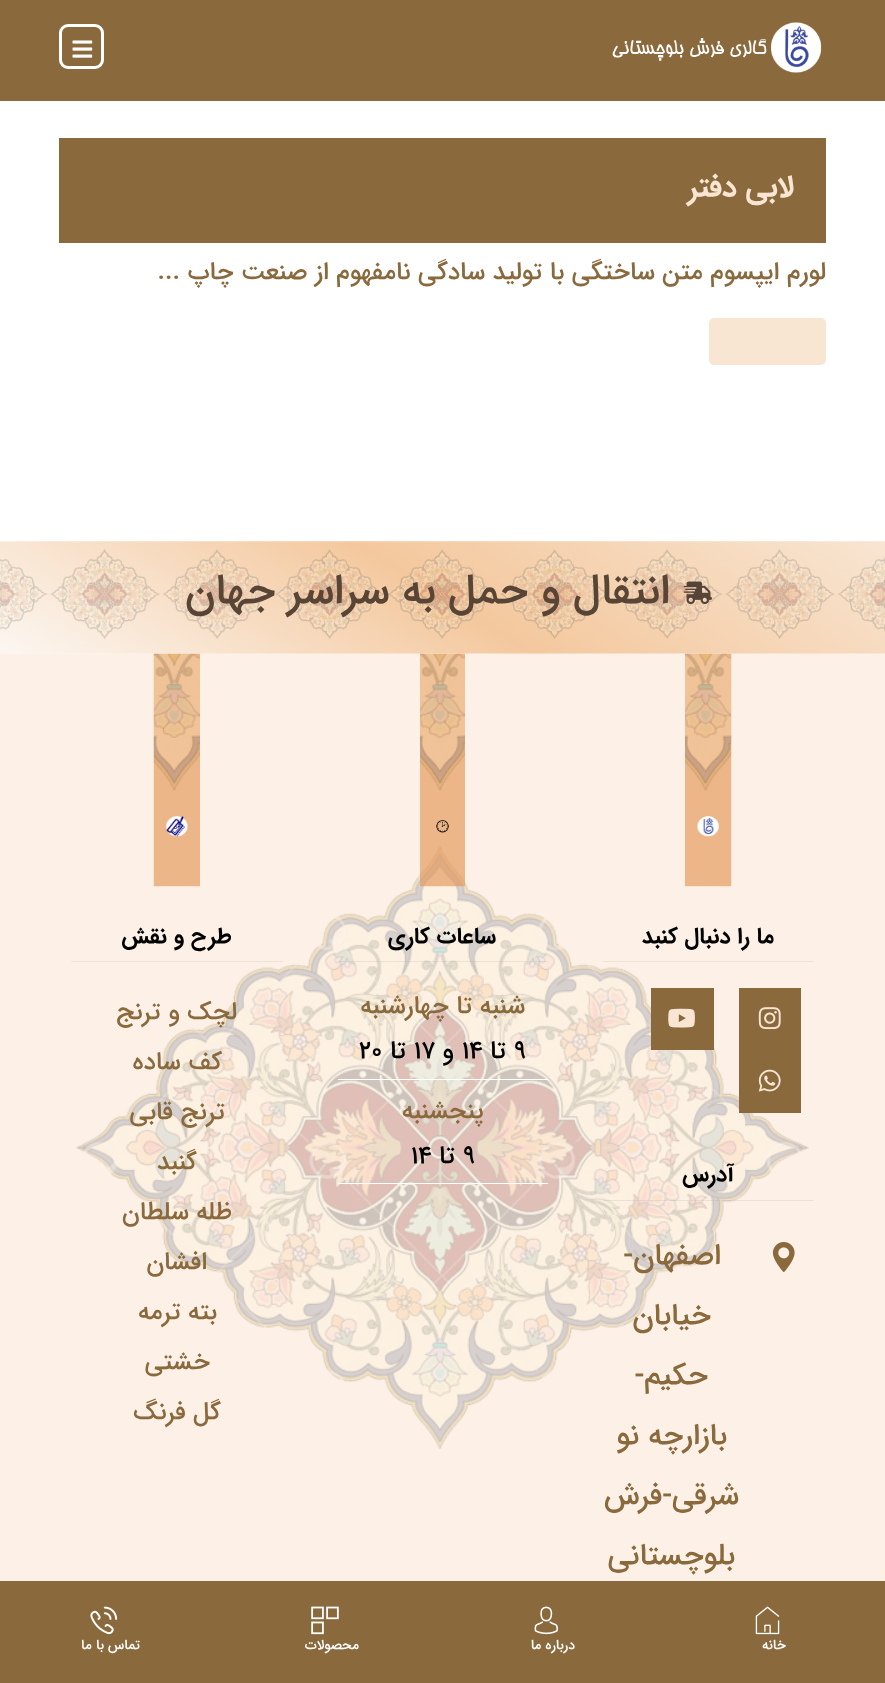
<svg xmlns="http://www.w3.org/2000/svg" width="885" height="1683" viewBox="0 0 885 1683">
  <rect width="100%" height="100%" fill="rgb(255,255,255)"/>
  <rect x="0" y="0" width="885" height="101" fill="rgb(138,105,60)"/>
  <image x="612" y="22" width="210" height="51" href="pic1.png"/>
  <rect x="60.5" y="25.5" width="42" height="42" rx="7.5" fill="none" stroke="rgb(255,255,255)" stroke-width="3"/>
  <image x="72" y="40" width="21" height="18" href="pic2.png"/>
  <rect x="59" y="138" width="767" height="105" fill="rgb(138,105,60)"/>
  <text x="794" y="196" font-family="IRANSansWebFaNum" font-size="30" font-weight="bold" direction="rtl" fill="rgb(248,229,210)">لابی دفتر</text>
  <text x="826" y="279" font-family="IRANSansWebFaNum" font-size="25" font-weight="500" direction="rtl" fill="rgb(138,105,60)">لورم ایپسوم متن ساختگی با تولید سادگی نامفهوم از صنعت چاپ ...</text>
  <rect x="709" y="318" width="117" height="47" rx="5" fill="rgb(248,229,210)"/>
  <image x="0" y="541" width="885" height="113" href="pic3.png"/>
  <image x="683" y="581" width="29" height="24" href="pic4.png"/>
  <text x="670" y="603" font-family="IRANSansWebFaNum" font-size="42.5" font-weight="500" direction="rtl" fill="rgb(88,69,54)">انتقال و حمل به سراسر جهان</text>
  <image x="0" y="653" width="885" height="928" href="pic5.png"/>
  <image x="685" y="653" width="47" height="234" href="pic6.png"/>
  <image x="697" y="816" width="22" height="21" href="pic7.png"/>
  <rect x="603" y="961" width="211" height="1" fill="rgb(236,226,218)"/>
  <text x="774" y="943" font-family="IRANSansWebFaNum" font-size="22.5" font-weight="bold" direction="rtl" fill="rgb(0,0,0)">ما را دنبال کنبد</text>
  <rect x="739" y="988" width="62" height="125" fill="rgb(138,105,60)"/>
  <image x="758" y="1007" width="23" height="23" href="pic8.png"/>
  <rect x="651" y="988" width="63" height="62" fill="rgb(138,105,60)"/>
  <image x="668" y="1008" width="27" height="20" href="pic9.png"/>
  <image x="758" y="1069" width="23" height="23" href="pic10.png"/>
  <rect x="603" y="1200" width="211" height="1" fill="rgba(167,167,167,0.2)"/>
  <text x="734" y="1181" font-family="IRANSansWebFaNum" font-size="22.5" font-weight="bold" direction="rtl" fill="rgb(0,0,0)">آدرس</text>
  <image x="772" y="1242" width="23" height="30" href="pic11.png"/>
  <g font-family="IRANSansWebFaNum" font-size="30" font-weight="500" direction="rtl" fill="rgb(138,105,60)">
    <text x="721" y="1264">اصفهان-</text>
    <text x="711" y="1324">خیابان</text>
    <text x="708" y="1384">حکیم-</text>
    <text x="727" y="1444">بازارچه نو</text>
    <text x="739" y="1504">شرقی-فرش</text>
    <text x="735" y="1564">بلوچستانی</text>
  </g>
  <image x="420" y="653" width="45" height="234" href="pic12.png"/>
  <image x="436" y="820" width="13" height="13" href="pic13.png"/>
  <rect x="338" y="961" width="210" height="1" fill="rgba(167,167,167,0.2)"/>
  <text x="496" y="943" font-family="IRANSansWebFaNum" font-size="22.5" font-weight="bold" direction="rtl" fill="rgb(0,0,0)">ساعات کاری</text>
  <text x="525" y="1013" font-family="IRANSansWebFaNum" font-size="25" font-weight="500" direction="rtl" fill="rgb(138,105,60)">شنبه تا چهارشنبه</text>
  <text x="514" y="1058" font-family="IRANSansWebFaNum" font-size="25" font-weight="500" fill="rgb(0,0,0)">۹</text>
  <text x="506" y="1058" font-family="IRANSansWebFaNum" font-size="25" font-weight="500" direction="rtl" fill="rgb(0,0,0)">تا</text>
  <text x="462" y="1058" font-family="IRANSansWebFaNum" font-size="25" font-weight="500" fill="rgb(0,0,0)">۱۴</text>
  <text x="454" y="1058" font-family="IRANSansWebFaNum" font-size="25" font-weight="500" direction="rtl" fill="rgb(0,0,0)">و</text>
  <text x="414" y="1058" font-family="IRANSansWebFaNum" font-size="25" font-weight="500" fill="rgb(0,0,0)">۱۷</text>
  <text x="406" y="1058" font-family="IRANSansWebFaNum" font-size="25" font-weight="500" direction="rtl" fill="rgb(0,0,0)">تا</text>
  <text x="359" y="1058" font-family="IRANSansWebFaNum" font-size="25" font-weight="500" fill="rgb(0,0,0)">۲۰</text>
  <rect x="338" y="1079" width="210" height="1" fill="rgb(255,255,255)"/>
  <text x="484" y="1118" font-family="IRANSansWebFaNum" font-size="25" font-weight="500" direction="rtl" fill="rgb(138,105,60)">پنجشنبه</text>
  <text x="463" y="1163" font-family="IRANSansWebFaNum" font-size="25" font-weight="500" fill="rgb(0,0,0)">۹</text>
  <text x="455" y="1163" font-family="IRANSansWebFaNum" font-size="25" font-weight="500" direction="rtl" fill="rgb(0,0,0)">تا</text>
  <text x="411" y="1163" font-family="IRANSansWebFaNum" font-size="25" font-weight="500" fill="rgb(0,0,0)">۱۴</text>
  <rect x="338" y="1183" width="210" height="1" fill="rgb(255,255,255)"/>
  <image x="153" y="653" width="47" height="234" href="pic14.png"/>
  <image x="166" y="816" width="22" height="21" href="pic15.png"/>
  <rect x="71" y="961" width="212" height="1" fill="rgb(236,226,218)"/>
  <text x="232" y="943" font-family="IRANSansWebFaNum" font-size="22.5" font-weight="bold" direction="rtl" fill="rgb(0,0,0)">طرح و نقش</text>
  <g font-family="IRANSansWebFaNum" font-size="25" font-weight="500" direction="rtl" fill="rgb(138,105,60)">
    <text x="237" y="1019">لچک و ترنج</text>
    <text x="222" y="1069">کف ساده</text>
    <text x="225" y="1119">ترنج قابی</text>
    <text x="197" y="1169">گنبد</text>
    <text x="232" y="1219">ظله سلطان</text>
    <text x="207" y="1269">افشان</text>
    <text x="217" y="1319">بته ترمه</text>
    <text x="210" y="1369">خشتی</text>
    <text x="221" y="1419">گل فرنگ</text>
  </g>
  <rect x="0" y="1581" width="885" height="102" fill="rgb(138,105,60)"/>
  <image x="755" y="1606" width="25" height="29" href="pic16.png"/>
  <text x="786" y="1649" font-family="IRANSansWebFaNum" font-size="13.75" font-weight="500" direction="rtl" fill="rgb(255,255,255)">خانه</text>
  <image x="534" y="1606" width="24" height="29" href="pic17.png"/>
  <text x="575" y="1649" font-family="IRANSansWebFaNum" font-size="13.75" font-weight="500" direction="rtl" fill="rgb(255,255,255)">درباره ما</text>
  <image x="311" y="1606" width="28" height="29" href="pic18.png"/>
  <text x="359" y="1649" font-family="IRANSansWebFaNum" font-size="13.75" font-weight="500" direction="rtl" fill="rgb(255,255,255)">محصولات</text>
  <image x="90" y="1606" width="28" height="29" href="pic19.png"/>
  <text x="140" y="1649" font-family="IRANSansWebFaNum" font-size="13.75" font-weight="500" direction="rtl" fill="rgb(255,255,255)">تماس با ما</text>
</svg>
